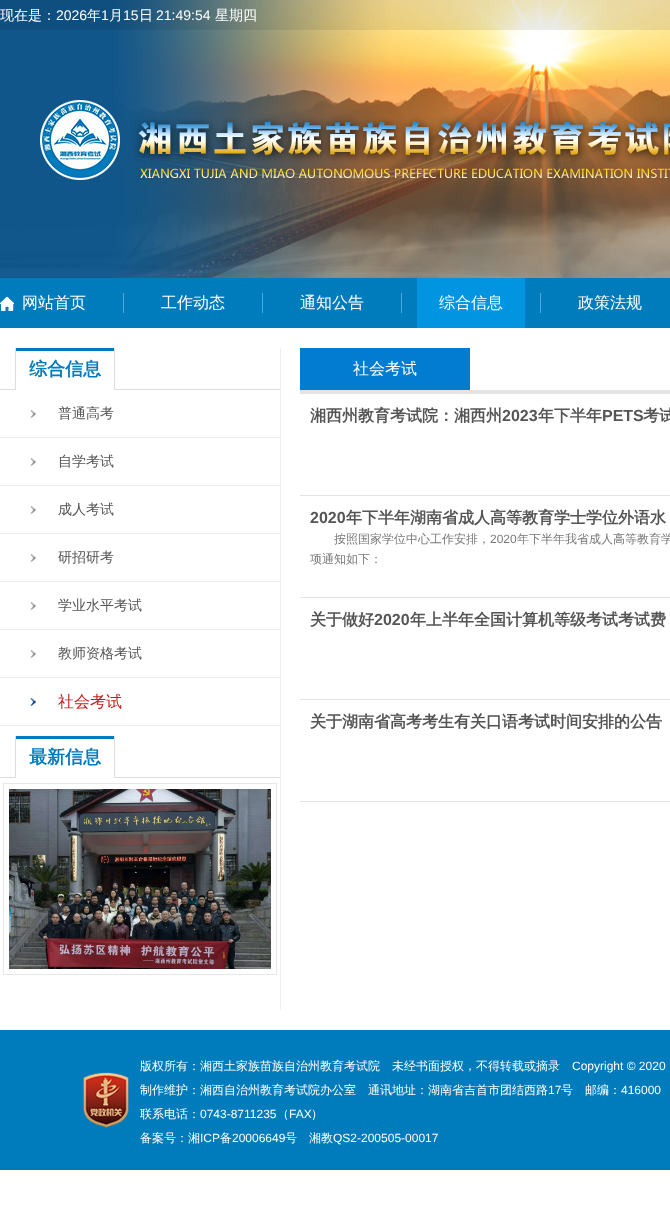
<svg xmlns="http://www.w3.org/2000/svg" width="670" height="1217" viewBox="0 0 670 1217">
  <rect width="100%" height="100%" fill="rgb(255,255,255)"/>
  <image x="0" y="0" width="670" height="278" href="pic1.png"/>
  <rect x="0" y="0" width="670" height="30" fill="rgba(0,0,0,0.08)"/>
  <text x="0" y="20" font-family="WenQuanYi Zen Hei" font-size="14" font-weight="500" fill="rgb(255,255,255)">现在是：</text>
  <text x="56" y="20" font-family="Liberation Sans" font-size="14" fill="rgb(255,255,255)">2026</text>
  <text x="87" y="20" font-family="WenQuanYi Zen Hei" font-size="14" font-weight="500" fill="rgb(255,255,255)">年</text>
  <text x="101" y="20" font-family="Liberation Sans" font-size="14" fill="rgb(255,255,255)">1</text>
  <text x="109" y="20" font-family="WenQuanYi Zen Hei" font-size="14" font-weight="500" fill="rgb(255,255,255)">月</text>
  <text x="123" y="20" font-family="Liberation Sans" font-size="14" fill="rgb(255,255,255)">15</text>
  <text x="139" y="20" font-family="WenQuanYi Zen Hei" font-size="14" font-weight="500" fill="rgb(255,255,255)">日</text>
  <text x="156" y="20" font-family="Liberation Sans" font-size="14" fill="rgb(255,255,255)">21:49:54</text>
  <text x="215" y="20" font-family="WenQuanYi Zen Hei" font-size="14" font-weight="500" fill="rgb(255,255,255)">星期四</text>
  <image x="40" y="100" width="630" height="80" href="pic2.png"/>
  <rect x="0" y="278" width="670" height="50" fill="rgb(0,123,187)"/>
  <image x="0" y="296" width="14" height="15" href="pic3.png"/>
  <text x="22" y="308" font-family="WenQuanYi Zen Hei" font-size="16" font-weight="500" fill="rgb(255,255,255)">网站首页</text>
  <rect x="123" y="293" width="1" height="20" fill="rgb(74,169,219)"/>
  <text x="161" y="308" font-family="WenQuanYi Zen Hei" font-size="16" font-weight="500" fill="rgb(255,255,255)">工作动态</text>
  <rect x="262" y="293" width="1" height="20" fill="rgb(74,169,219)"/>
  <text x="300" y="308" font-family="WenQuanYi Zen Hei" font-size="16" font-weight="500" fill="rgb(255,255,255)">通知公告</text>
  <rect x="401" y="293" width="1" height="20" fill="rgb(74,169,219)"/>
  <rect x="417" y="278" width="108" height="50" fill="rgb(0,148,225)"/>
  <text x="439" y="308" font-family="WenQuanYi Zen Hei" font-size="16" font-weight="500" fill="rgb(255,255,255)">综合信息</text>
  <rect x="540" y="293" width="1" height="20" fill="rgb(74,169,219)"/>
  <text x="578" y="308" font-family="WenQuanYi Zen Hei" font-size="16" font-weight="500" fill="rgb(255,255,255)">政策法规</text>
  <rect x="280" y="348" width="1" height="662" fill="rgb(238,238,238)"/>
  <rect x="0" y="389" width="280" height="1" fill="rgb(222,222,222)"/>
  <rect x="16" y="389" width="98" height="1" fill="rgb(255,255,255)"/>
  <rect x="114" y="348" width="1" height="42" fill="rgb(222,222,222)"/>
  <rect x="15" y="348" width="1" height="42" fill="rgb(222,222,222)"/>
  <rect x="16" y="348" width="98" height="3" fill="rgb(0,123,187)"/>
  <text x="29" y="375" font-family="WenQuanYi Zen Hei" font-size="18" font-weight="bold" fill="rgb(0,123,187)">综合信息</text>
  <rect x="0" y="437" width="280" height="1" fill="rgb(238,238,238)"/>
  <image x="30" y="410" width="6" height="8" href="pic4.png"/>
  <text x="58" y="418" font-family="WenQuanYi Zen Hei" font-size="14" font-weight="500" fill="rgb(85,85,85)">普通高考</text>
  <rect x="0" y="485" width="280" height="1" fill="rgb(238,238,238)"/>
  <image x="30" y="458" width="6" height="8" href="pic4.png"/>
  <text x="58" y="466" font-family="WenQuanYi Zen Hei" font-size="14" font-weight="500" fill="rgb(85,85,85)">自学考试</text>
  <rect x="0" y="533" width="280" height="1" fill="rgb(238,238,238)"/>
  <image x="30" y="506" width="6" height="8" href="pic4.png"/>
  <text x="58" y="514" font-family="WenQuanYi Zen Hei" font-size="14" font-weight="500" fill="rgb(85,85,85)">成人考试</text>
  <rect x="0" y="581" width="280" height="1" fill="rgb(238,238,238)"/>
  <image x="30" y="554" width="6" height="8" href="pic4.png"/>
  <text x="58" y="562" font-family="WenQuanYi Zen Hei" font-size="14" font-weight="500" fill="rgb(85,85,85)">研招研考</text>
  <rect x="0" y="629" width="280" height="1" fill="rgb(238,238,238)"/>
  <image x="30" y="602" width="6" height="8" href="pic4.png"/>
  <text x="58" y="610" font-family="WenQuanYi Zen Hei" font-size="14" font-weight="500" fill="rgb(85,85,85)">学业水平考试</text>
  <rect x="0" y="677" width="280" height="1" fill="rgb(238,238,238)"/>
  <image x="30" y="650" width="6" height="8" href="pic4.png"/>
  <text x="58" y="658" font-family="WenQuanYi Zen Hei" font-size="14" font-weight="500" fill="rgb(85,85,85)">教师资格考试</text>
  <rect x="0" y="725" width="280" height="1" fill="rgb(238,238,238)"/>
  <image x="30" y="698" width="6" height="8" href="pic5.png"/>
  <text x="58" y="707" font-family="WenQuanYi Zen Hei" font-size="16" font-weight="500" fill="rgb(194,30,28)">社会考试</text>
  <rect x="0" y="777" width="280" height="1" fill="rgb(222,222,222)"/>
  <rect x="16" y="777" width="98" height="1" fill="rgb(255,255,255)"/>
  <rect x="114" y="736" width="1" height="42" fill="rgb(222,222,222)"/>
  <rect x="15" y="736" width="1" height="42" fill="rgb(222,222,222)"/>
  <rect x="16" y="736" width="98" height="3" fill="rgb(0,123,187)"/>
  <text x="29" y="763" font-family="WenQuanYi Zen Hei" font-size="18" font-weight="bold" fill="rgb(0,123,187)">最新信息</text>
  <rect x="3.5" y="783.5" width="273" height="191" fill="none" stroke="rgb(231,231,231)"/>
  <image x="9" y="789" width="262" height="180" href="pic6.png"/>
  <rect x="300" y="390" width="370" height="4" fill="rgb(228,228,228)"/>
  <rect x="300" y="348" width="170" height="42" fill="rgb(2,124,209)"/>
  <text x="353" y="374" font-family="WenQuanYi Zen Hei" font-size="16" font-weight="500" fill="rgb(255,255,255)">社会考试</text>
  <rect x="300" y="495" width="370" height="1" fill="rgb(228,228,228)"/>
  <text x="310" y="421" font-family="WenQuanYi Zen Hei" font-size="16" font-weight="bold" fill="rgb(85,85,85)">湘西州教育考试院：湘西州</text>
  <text x="502" y="421" font-family="Liberation Sans" font-size="16" font-weight="bold" fill="rgb(85,85,85)">2023</text>
  <text x="538" y="421" font-family="WenQuanYi Zen Hei" font-size="16" font-weight="bold" fill="rgb(85,85,85)">年下半年</text>
  <text x="602" y="421" font-family="Liberation Sans" font-size="16" font-weight="bold" fill="rgb(85,85,85)">PETS</text>
  <text x="643" y="421" font-family="WenQuanYi Zen Hei" font-size="16" font-weight="bold" fill="rgb(85,85,85)">考试</text>
  <rect x="300" y="597" width="370" height="1" fill="rgb(228,228,228)"/>
  <text x="310" y="523" font-family="Liberation Sans" font-size="16" font-weight="bold" fill="rgb(85,85,85)">2020</text>
  <text x="346" y="523" font-family="WenQuanYi Zen Hei" font-size="16" font-weight="bold" fill="rgb(85,85,85)">年下半年湖南省成人高等教育学士学位外语水</text>
  <text x="334" y="543" font-family="WenQuanYi Zen Hei" font-size="12" font-weight="500" fill="rgb(119,119,119)">按照国家学位中心工作安排，</text>
  <text x="490" y="543" font-family="Liberation Sans" font-size="12" fill="rgb(119,119,119)">2020</text>
  <g font-family="WenQuanYi Zen Hei" font-size="12" font-weight="500" fill="rgb(119,119,119)">
    <text x="517" y="543">年下半年我省成人高等教育学</text>
    <text x="310" y="563">项通知如下：</text>
  </g>
  <rect x="300" y="699" width="370" height="1" fill="rgb(228,228,228)"/>
  <text x="310" y="625" font-family="WenQuanYi Zen Hei" font-size="16" font-weight="bold" fill="rgb(85,85,85)">关于做好</text>
  <text x="374" y="625" font-family="Liberation Sans" font-size="16" font-weight="bold" fill="rgb(85,85,85)">2020</text>
  <text x="410" y="625" font-family="WenQuanYi Zen Hei" font-size="16" font-weight="bold" fill="rgb(85,85,85)">年上半年全国计算机等级考试考试费</text>
  <rect x="300" y="801" width="370" height="1" fill="rgb(228,228,228)"/>
  <text x="310" y="727" font-family="WenQuanYi Zen Hei" font-size="16" font-weight="bold" fill="rgb(85,85,85)">关于湖南省高考考生有关口语考试时间安排的公告</text>
  <rect x="0" y="1030" width="670" height="140" fill="rgb(0,123,187)"/>
  <text x="140" y="1070" font-family="WenQuanYi Zen Hei" font-size="12" font-weight="500" fill="rgb(255,255,255)">版权所有：湘西土家族苗族自治州教育考试院　未经书面授权，不得转载或摘录</text>
  <text x="572" y="1070" font-family="Liberation Sans" font-size="12" fill="rgb(255,255,255)">Copyright © 2020</text>
  <image x="83" y="1072" width="46" height="56" href="pic7.png"/>
  <text x="140" y="1094" font-family="WenQuanYi Zen Hei" font-size="12" font-weight="500" fill="rgb(255,255,255)">制作维护：湘西自治州教育考试院办公室　通讯地址：湖南省吉首市团结西路</text>
  <text x="548" y="1094" font-family="Liberation Sans" font-size="12" fill="rgb(255,255,255)">17</text>
  <text x="561" y="1094" font-family="WenQuanYi Zen Hei" font-size="12" font-weight="500" fill="rgb(255,255,255)">号　邮编：</text>
  <text x="621" y="1094" font-family="Liberation Sans" font-size="12" fill="rgb(255,255,255)">416000</text>
  <text x="140" y="1118" font-family="WenQuanYi Zen Hei" font-size="12" font-weight="500" fill="rgb(255,255,255)">联系电话：</text>
  <text x="200" y="1118" font-family="Liberation Sans" font-size="12" fill="rgb(255,255,255)">0743-8711235</text>
  <text x="277" y="1118" font-family="WenQuanYi Zen Hei" font-size="12" font-weight="500" fill="rgb(255,255,255)">（</text>
  <text x="289" y="1118" font-family="Liberation Sans" font-size="12" fill="rgb(255,255,255)">FAX</text>
  <g font-family="WenQuanYi Zen Hei" font-size="12" font-weight="500" fill="rgb(255,255,255)">
    <text x="311" y="1118">）</text>
    <text x="140" y="1142">备案号：湘</text>
  </g>
  <text x="200" y="1142" font-family="Liberation Sans" font-size="12" fill="rgb(255,255,255)">ICP</text>
  <text x="220" y="1142" font-family="WenQuanYi Zen Hei" font-size="12" font-weight="500" fill="rgb(255,255,255)">备</text>
  <text x="232" y="1142" font-family="Liberation Sans" font-size="12" fill="rgb(255,255,255)">20006649</text>
  <g font-family="WenQuanYi Zen Hei" font-size="12" font-weight="500" fill="rgb(255,255,255)">
    <text x="285" y="1142">号</text>
    <text x="309" y="1142">湘教</text>
  </g>
  <text x="333" y="1142" font-family="Liberation Sans" font-size="12" fill="rgb(255,255,255)">QS2-200505-00017</text>
</svg>
